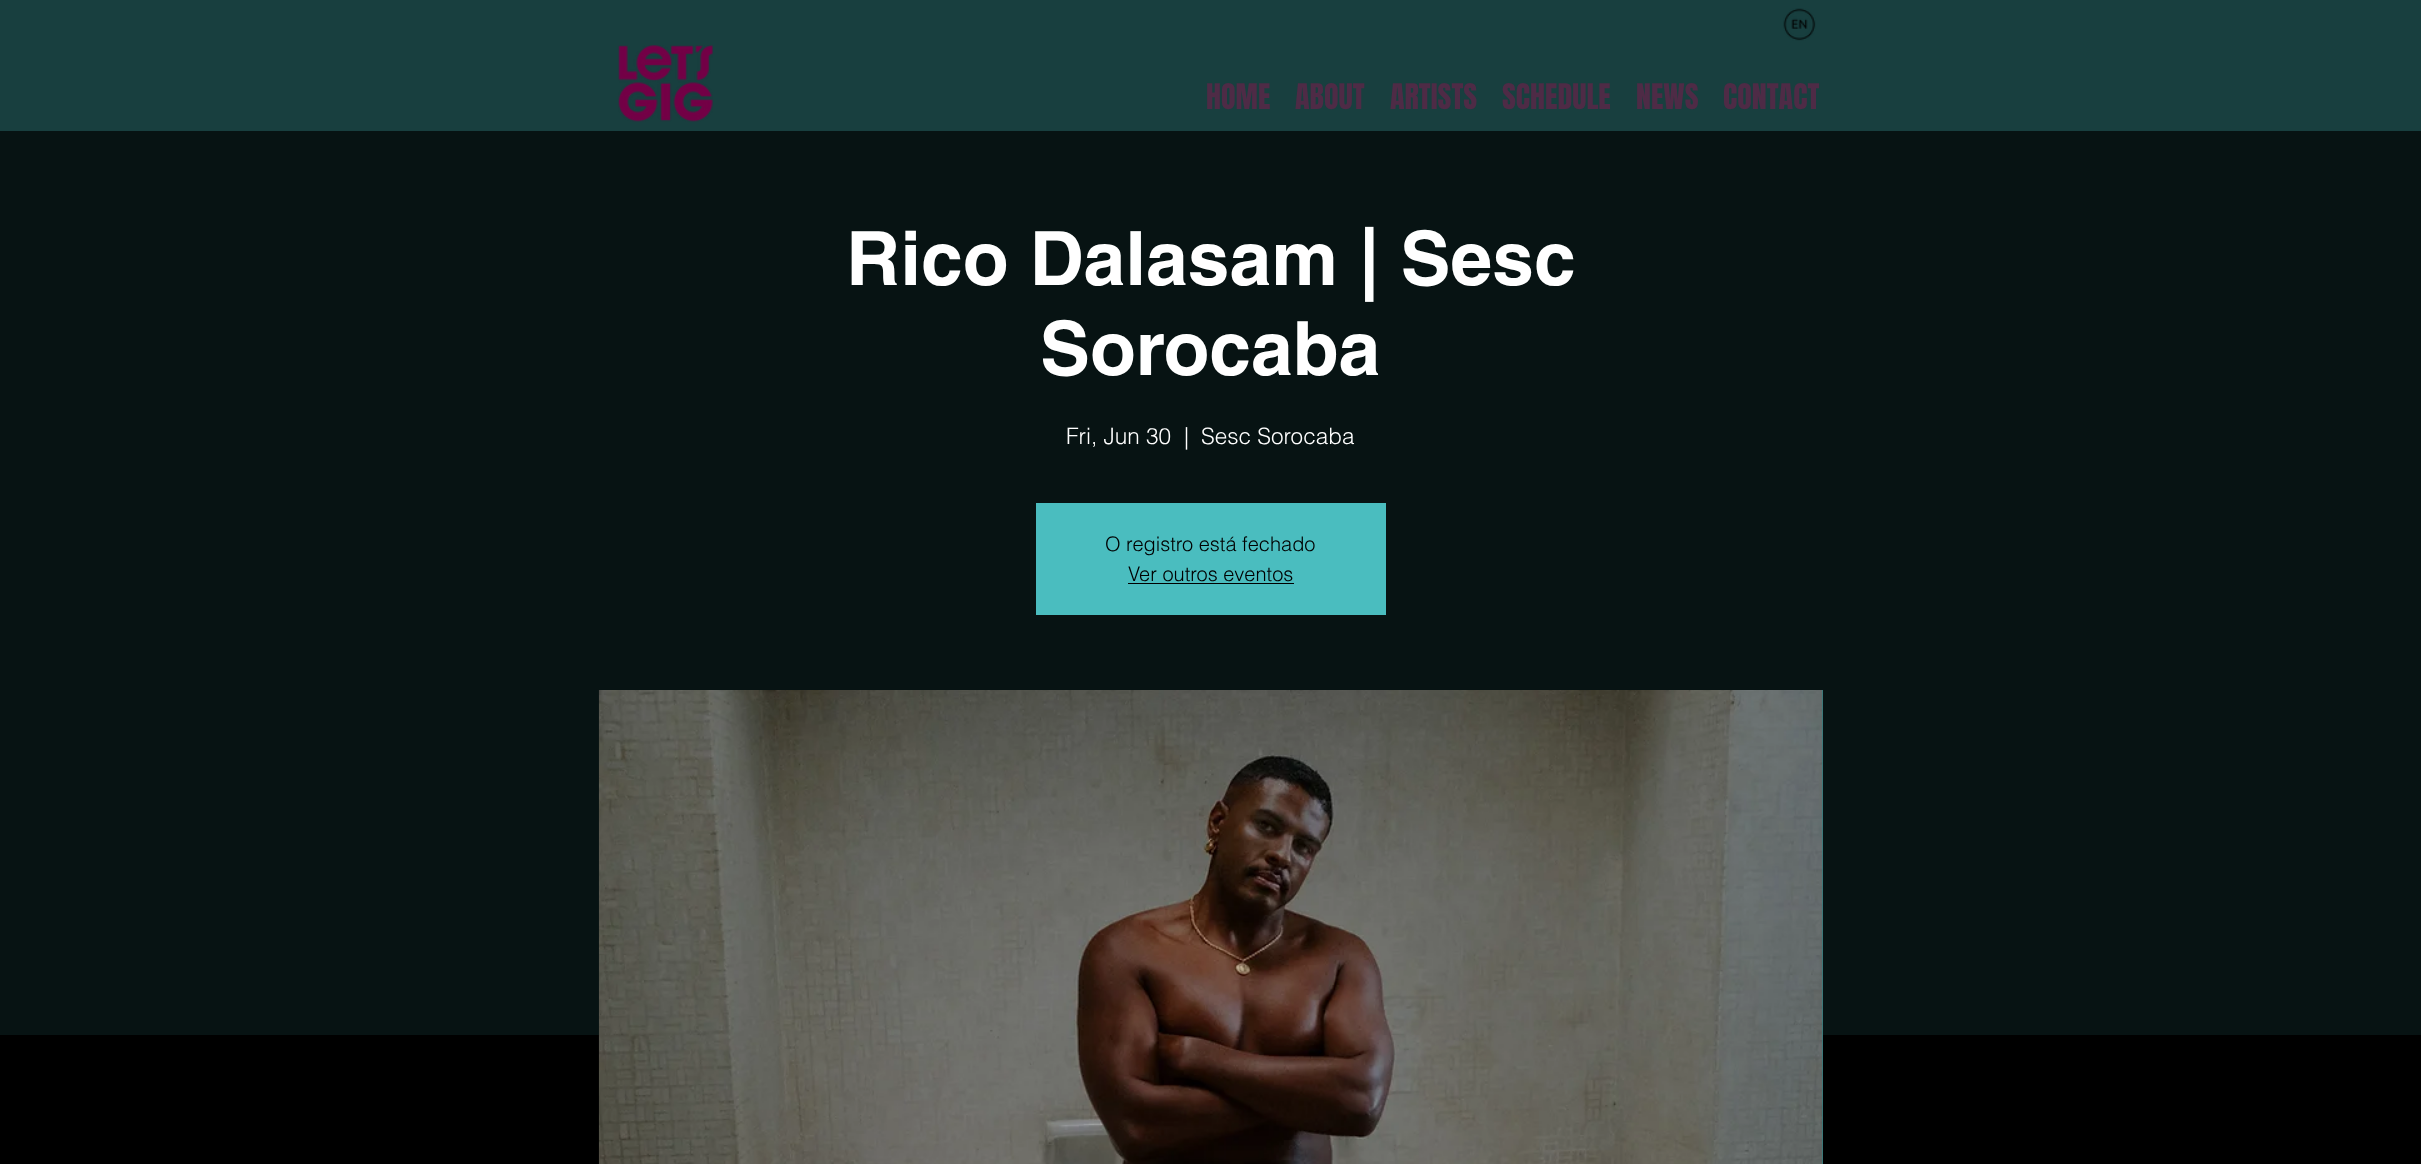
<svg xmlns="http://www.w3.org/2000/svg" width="2421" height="1164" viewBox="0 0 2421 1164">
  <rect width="100%" height="100%" fill="rgb(24,63,63)"/>
  <image x="1783" y="8" width="33" height="33" href="pic1.png"/>
  <image x="618" y="45" width="95" height="77" href="pic2.png"/>
  <g font-family="Anton" font-size="30" fill="rgb(78,43,70)">
    <text x="1206" y="109">HOME</text>
    <text x="1295" y="109">ABOUT</text>
    <text x="1390" y="109">ARTISTS</text>
    <text x="1502" y="109">SCHEDULE</text>
    <text x="1636" y="109">NEWS</text>
    <text x="1723" y="109">CONTACT</text>
  </g>
  <rect x="0" y="131" width="2421" height="904" fill="rgb(7,19,19)"/>
  <g font-family="helvetica" font-size="75" font-weight="bold" fill="rgb(255,255,255)">
    <text x="846" y="285">Rico Dalasam | Sesc</text>
    <text x="1040" y="375">Sorocaba</text>
  </g>
  <g font-family="helvetica" font-size="22.5" font-weight="300" fill="rgb(255,255,255)">
    <text x="1066" y="444">Fri, Jun 30</text>
    <text x="1184" y="444">|</text>
    <text x="1201" y="444">Sesc Sorocaba</text>
  </g>
  <rect x="1036" y="503" width="350" height="112" fill="rgb(74,189,191)"/>
  <g font-family="helvetica" font-size="20" font-weight="300" fill="rgb(0,0,0)">
    <text x="1105" y="551">O registro está fechado</text>
    <text x="1128" y="581">Ver outros eventos</text>
  </g>
  <rect x="1128" y="583" width="166" height="1" fill="rgb(0,0,0)"/>
  <rect x="0" y="1035" width="2421" height="129" fill="rgb(0,0,0)"/>
  <rect x="1822" y="690" width="1" height="474" fill="rgb(49,126,127)"/>
  <image x="598" y="690" width="1225" height="474" href="pic3.png"/>
</svg>
